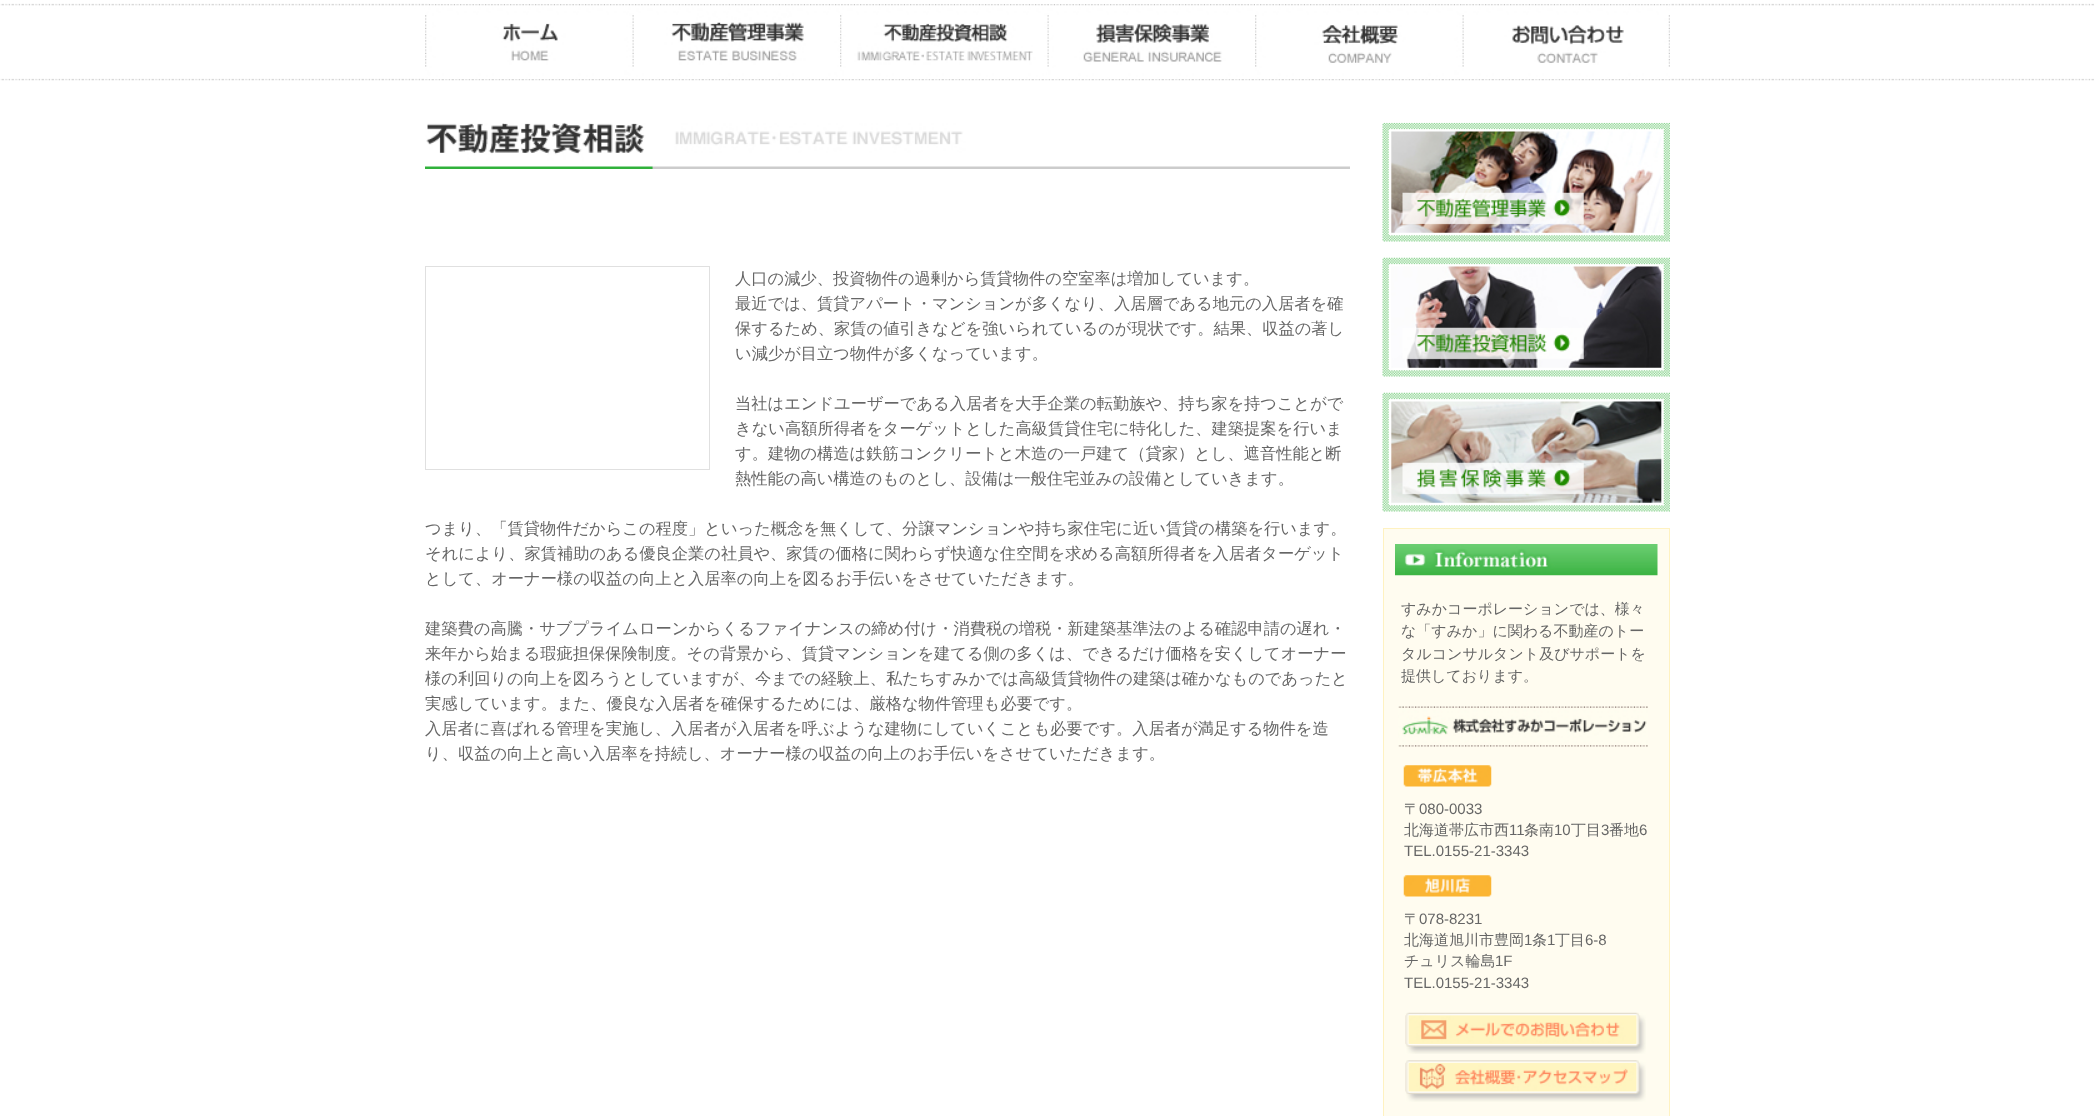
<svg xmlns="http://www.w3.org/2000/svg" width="2094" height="1116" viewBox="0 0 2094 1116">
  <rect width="100%" height="100%" fill="rgb(255,255,255)"/>
  <image x="0" y="3" width="2094" height="78" href="pic1.png"/>
  <rect x="429" y="3" width="1241" height="1" fill="rgb(255,255,255)"/>
  <image x="425" y="4" width="208" height="75" href="pic2.png"/>
  <image x="632" y="4" width="208" height="75" href="pic3.png"/>
  <image x="840" y="4" width="208" height="75" href="pic4.png"/>
  <image x="1047" y="4" width="208" height="75" href="pic5.png"/>
  <image x="1255" y="4" width="208" height="75" href="pic6.png"/>
  <image x="1462" y="4" width="208" height="75" href="pic7.png"/>
  <image x="425" y="122" width="925" height="47" href="pic8.png"/>
  <rect x="425.5" y="266.5" width="284" height="203" fill="none" stroke="rgb(224,224,224)"/>
  <g font-family="WenQuanYi Zen Hei" font-size="16.25" font-weight="500" fill="rgb(102,102,102)">
    <text>
      <tspan x="735" y="284">人口の減少、投資物件の過剰から賃貸物件の空室率は増加しています。</tspan>
      <tspan x="735" y="309">最近では、賃貸アパート・マンションが多くなり、入居層である地元の入居者を確</tspan>
      <tspan x="735" y="334">保するため、家賃の値引きなどを強いられているのが現状です。結果、収益の著し</tspan>
      <tspan x="735" y="359">い減少が目立つ物件が多くなっています。</tspan>
    </text>
    <text>
      <tspan x="735" y="409">当社はエンドユーザーである入居者を大手企業の転勤族や、持ち家を持つことがで</tspan>
      <tspan x="735" y="434">きない高額所得者をターゲットとした高級賃貸住宅に特化した、建築提案を行いま</tspan>
      <tspan x="735" y="459">す。建物の構造は鉄筋コンクリートと木造の一戸建て（貸家）とし、遮音性能と断</tspan>
      <tspan x="735" y="484">熱性能の高い構造のものとし、設備は一般住宅並みの設備としていきます。</tspan>
    </text>
    <text>
      <tspan x="425" y="534">つまり、「賃貸物件だからこの程度」といった概念を無くして、分譲マンションや持ち家住宅に近い賃貸の構築を行います。</tspan>
      <tspan x="425" y="559">それにより、家賃補助のある優良企業の社員や、家賃の価格に関わらず快適な住空間を求める高額所得者を入居者ターゲット</tspan>
      <tspan x="425" y="584">として、オーナー様の収益の向上と入居率の向上を図るお手伝いをさせていただきます。</tspan>
    </text>
    <text>
      <tspan x="425" y="634">建築費の高騰・サブプライムローンからくるファイナンスの締め付け・消費税の増税・新建築基準法のよる確認申請の遅れ・</tspan>
      <tspan x="425" y="659">来年から始まる瑕疵担保保険制度。その背景から、賃貸マンションを建てる側の多くは、できるだけ価格を安くしてオーナー</tspan>
      <tspan x="425" y="684">様の利回りの向上を図ろうとしていますが、今までの経験上、私たちすみかでは高級賃貸物件の建築は確かなものであったと</tspan>
      <tspan x="425" y="709">実感しています。また、優良な入居者を確保するためには、厳格な物件管理も必要です。</tspan>
      <tspan x="425" y="734">入居者に喜ばれる管理を実施し、入居者が入居者を呼ぶような建物にしていくことも必要です。入居者が満足する物件を造</tspan>
      <tspan x="425" y="759">り、収益の向上と高い入居率を持続し、オーナー様の収益の向上のお手伝いをさせていただきます。</tspan>
    </text>
  </g>
  <image x="1382" y="122" width="288" height="120" href="pic9.png"/>
  <image x="1382" y="257" width="288" height="120" href="pic10.png"/>
  <image x="1382" y="392" width="288" height="120" href="pic11.png"/>
  <rect x="1383.5" y="528.5" width="286" height="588" fill="rgb(255,252,240)" stroke="rgb(255,242,193)"/>
  <image x="1395" y="544" width="263" height="32" href="pic12.png"/>
  <g font-family="WenQuanYi Zen Hei" font-size="15" font-weight="500" fill="rgb(102,102,102)">
    <text>
      <tspan x="1401" y="614">すみかコーポレーションでは、様々</tspan>
      <tspan x="1401" y="636">な「すみか」に関わる不動産のトー</tspan>
      <tspan x="1401" y="659">タルコンサルタント及びサポートを</tspan>
      <tspan x="1401" y="681">提供しております。</tspan>
    </text>
  </g>
  <image x="1398" y="706" width="250" height="41" href="pic13.png"/>
  <image x="1403" y="765" width="89" height="22" href="pic14.png"/>
  <text x="1404" y="814" font-family="WenQuanYi Zen Hei" font-size="15" font-weight="500" fill="rgb(102,102,102)">〒</text>
  <text x="1419" y="814" font-family="Liberation Sans" font-size="15" fill="rgb(102,102,102)">080-0033</text>
  <text x="1404" y="835" font-family="WenQuanYi Zen Hei" font-size="15" font-weight="500" fill="rgb(102,102,102)">北海道帯広市西</text>
  <text x="1509" y="835" font-family="Liberation Sans" font-size="15" fill="rgb(102,102,102)">11</text>
  <text x="1524" y="835" font-family="WenQuanYi Zen Hei" font-size="15" font-weight="500" fill="rgb(102,102,102)">条南</text>
  <text x="1554" y="835" font-family="Liberation Sans" font-size="15" fill="rgb(102,102,102)">10</text>
  <text x="1571" y="835" font-family="WenQuanYi Zen Hei" font-size="15" font-weight="500" fill="rgb(102,102,102)">丁目</text>
  <text x="1601" y="835" font-family="Liberation Sans" font-size="15" fill="rgb(102,102,102)">3</text>
  <text x="1609" y="835" font-family="WenQuanYi Zen Hei" font-size="15" font-weight="500" fill="rgb(102,102,102)">番地</text>
  <g font-family="Liberation Sans" font-size="15" fill="rgb(102,102,102)">
    <text x="1639" y="835">6</text>
    <text x="1404" y="856">TEL.0155-21-3343</text>
  </g>
  <image x="1403" y="875" width="89" height="22" href="pic15.png"/>
  <text x="1404" y="924" font-family="WenQuanYi Zen Hei" font-size="15" font-weight="500" fill="rgb(102,102,102)">〒</text>
  <text x="1419" y="924" font-family="Liberation Sans" font-size="15" fill="rgb(102,102,102)">078-8231</text>
  <text x="1404" y="945" font-family="WenQuanYi Zen Hei" font-size="15" font-weight="500" fill="rgb(102,102,102)">北海道旭川市豊岡</text>
  <text x="1524" y="945" font-family="Liberation Sans" font-size="15" fill="rgb(102,102,102)">1</text>
  <text x="1532" y="945" font-family="WenQuanYi Zen Hei" font-size="15" font-weight="500" fill="rgb(102,102,102)">条</text>
  <text x="1547" y="945" font-family="Liberation Sans" font-size="15" fill="rgb(102,102,102)">1</text>
  <text x="1555" y="945" font-family="WenQuanYi Zen Hei" font-size="15" font-weight="500" fill="rgb(102,102,102)">丁目</text>
  <text x="1585" y="945" font-family="Liberation Sans" font-size="15" fill="rgb(102,102,102)">6-8</text>
  <text x="1404" y="966" font-family="WenQuanYi Zen Hei" font-size="15" font-weight="500" fill="rgb(102,102,102)">チュリス輪島</text>
  <g font-family="Liberation Sans" font-size="15" fill="rgb(102,102,102)">
    <text x="1495" y="966">1F</text>
    <text x="1404" y="988">TEL.0155-21-3343</text>
  </g>
  <image x="1405" y="1012" width="241" height="42" href="pic16.png"/>
  <image x="1405" y="1060" width="241" height="42" href="pic17.png"/>
</svg>
